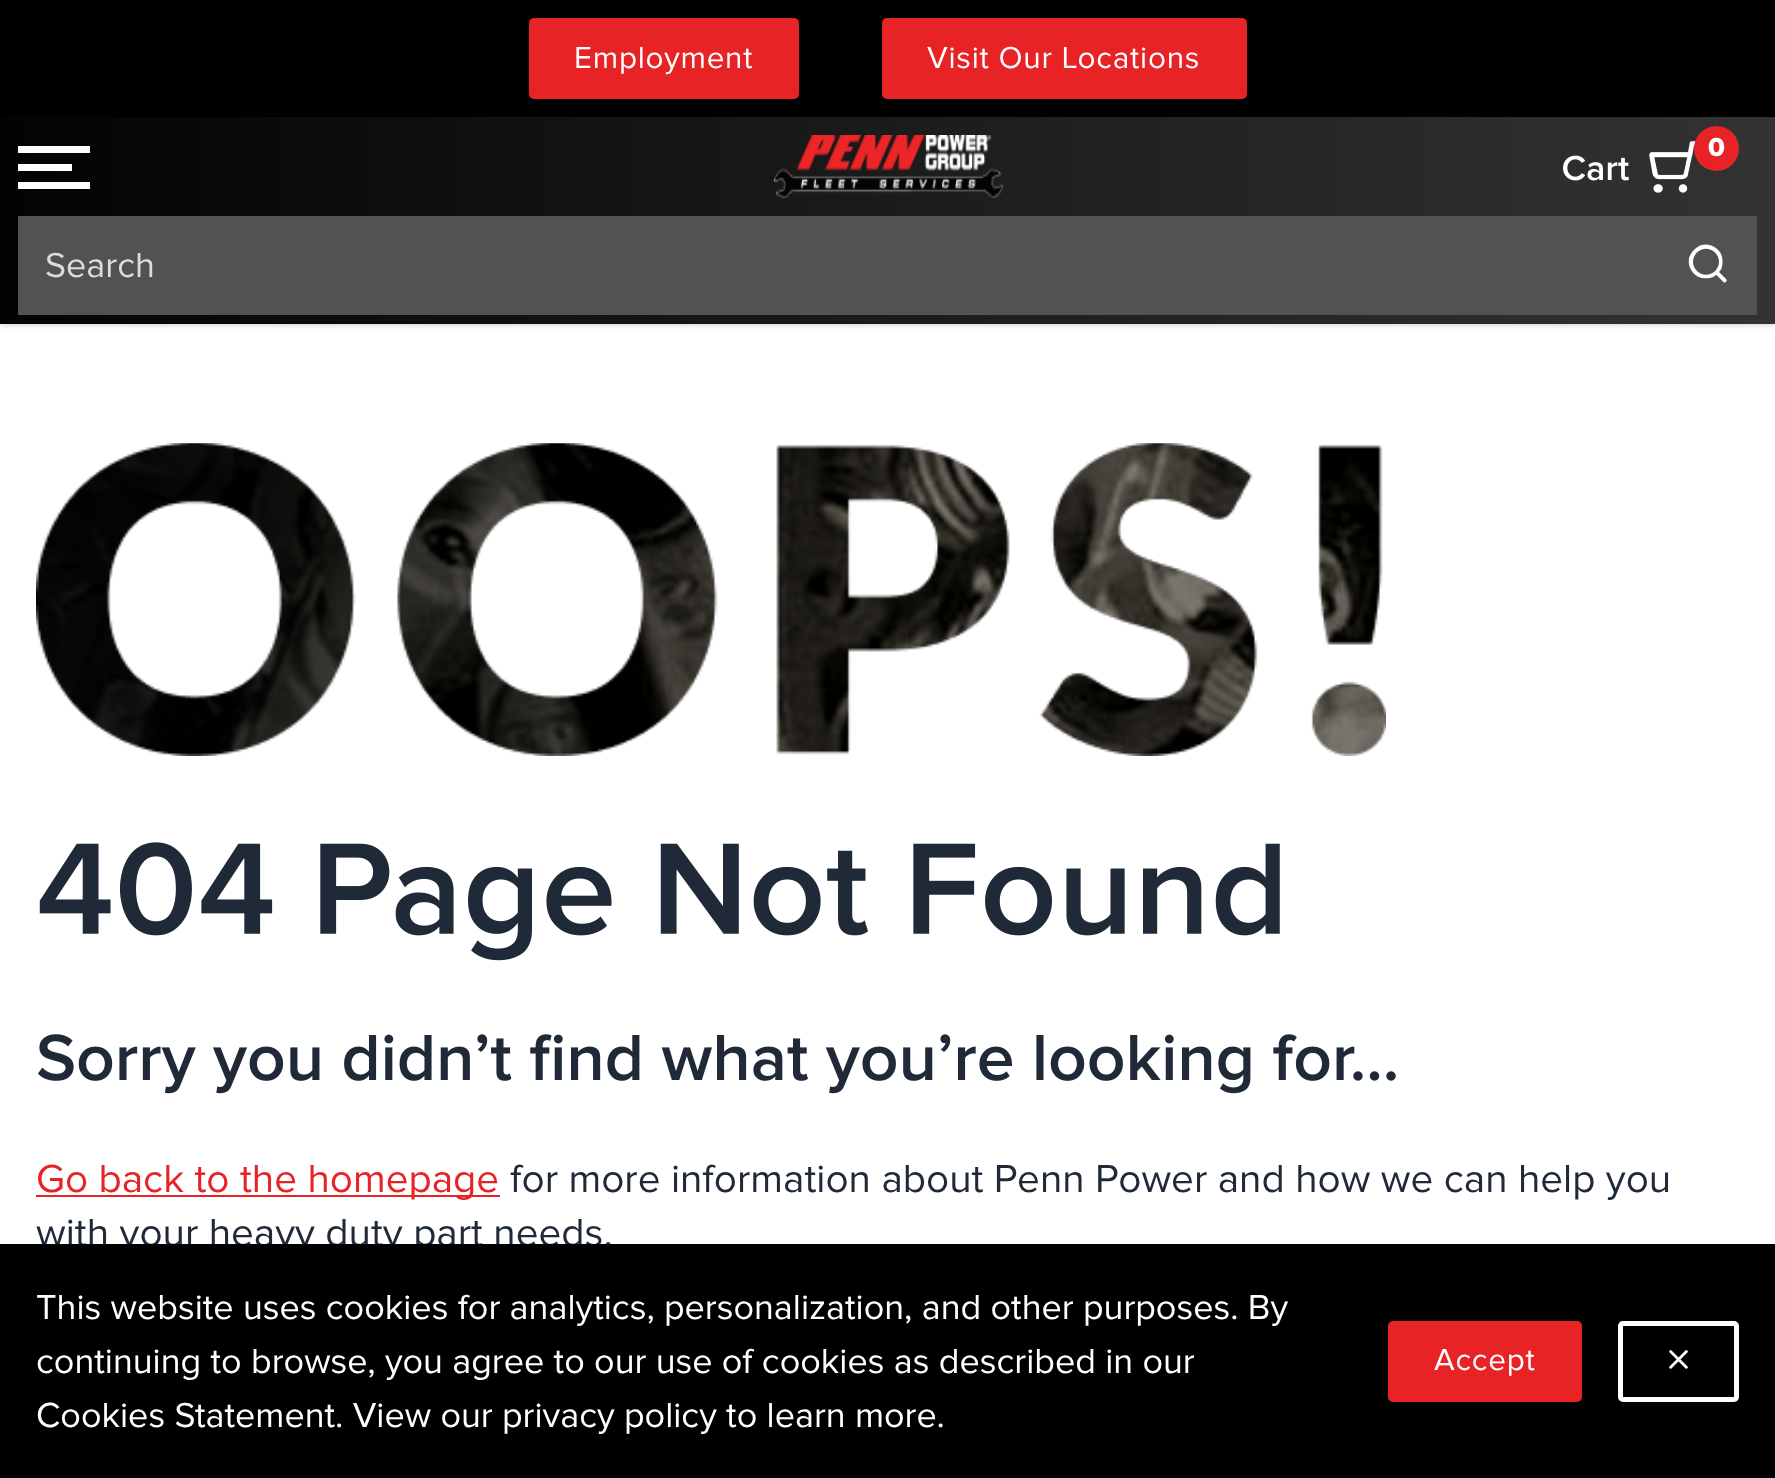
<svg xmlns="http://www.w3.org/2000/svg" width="1775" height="1478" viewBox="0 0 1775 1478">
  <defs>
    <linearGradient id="g1" gradientUnits="userSpaceOnUse" x1="1775" y1="162" x2="0" y2="162"><stop offset="0" stop-color="rgb(51,51,51)"/><stop offset="1" stop-color="rgb(2,3,3)"/></linearGradient>
    <linearGradient id="g2" gradientUnits="userSpaceOnUse" x1="1775" y1="167" x2="0" y2="166"><stop offset="0" stop-color="rgb(51,51,51)"/><stop offset="1" stop-color="rgb(2,3,3)"/></linearGradient>
  </defs>
  <rect width="100%" height="100%" fill="rgb(255,255,255)"/>
  <rect x="2" y="5" width="1771" height="319" fill="rgba(0,0,0,0.1)" filter="blur(2px)"/>
  <rect x="0" y="2" width="1775" height="324" fill="rgba(0,0,0,0.1)" filter="blur(3.5px)"/>
  <rect x="0" y="216" width="1775" height="108" fill="url(#g1)"/>
  <rect x="0" y="0" width="1775" height="117" fill="rgb(0,0,0)"/>
  <rect x="529" y="18" width="270" height="81" rx="5" fill="rgb(231,35,38)"/>
  <text x="574" y="68" font-family="Proxima Nova" font-size="31.5" letter-spacing="0.75" fill="rgb(255,255,255)">Employment</text>
  <rect x="882" y="18" width="365" height="81" rx="5" fill="rgb(231,35,38)"/>
  <text x="927" y="68" font-family="Proxima Nova" font-size="31.5" letter-spacing="0.75" fill="rgb(255,255,255)">Visit Our Locations</text>
  <rect x="0" y="117" width="1775" height="99" fill="url(#g2)"/>
  <rect x="18" y="164" width="54" height="7" fill="rgb(255,255,255)"/>
  <rect x="18" y="146" width="72" height="7" fill="rgb(255,255,255)"/>
  <rect x="18" y="182" width="72" height="7" fill="rgb(255,255,255)"/>
  <image x="773" y="135" width="231" height="63" href="pic1.png"/>
  <image x="1563" y="155" width="67" height="26" href="pic2.png"/>
  <image x="1649" y="141" width="47" height="52" href="pic3.png"/>
  <circle cx="1716.5" cy="148.5" r="22.5" fill="rgb(231,35,38)"/>
  <text x="1708" y="156" font-family="Proxima Nova" font-size="27" font-weight="800" fill="rgb(255,255,255)">0</text>
  <rect x="18" y="216" width="1739" height="99" fill="rgb(82,82,82)"/>
  <text x="45" y="277" font-family="Proxima Nova" font-size="36" fill="rgb(220,220,220)">Search</text>
  <image x="1688" y="244" width="39" height="39" href="pic4.png"/>
  <image x="36" y="443" width="1350" height="313" href="pic5.png"/>
  <image x="39" y="842" width="1241" height="119" href="pic6.png"/>
  <image x="38" y="1034" width="1358" height="60" href="pic7.png"/>
  <rect x="36" y="1195" width="464" height="2" fill="rgb(231,35,38)"/>
  <text x="36" y="1192" font-family="Proxima Nova" font-size="40.5" fill="rgb(231,35,38)">Go back to the homepage</text>
  <g font-family="Proxima Nova" font-size="40.5" fill="rgb(31,41,55)">
    <text x="510" y="1192">for more information about Penn Power and how we can help you</text>
    <text x="36" y="1246">with your heavy duty part needs.</text>
  </g>
  <rect x="0" y="1244" width="1775" height="234" fill="rgb(0,0,0)"/>
  <g font-family="Proxima Nova" font-size="36" fill="rgb(255,255,255)">
    <text>
      <tspan x="36" y="1319">This website uses cookies for analytics, personalization, and other purposes. By</tspan>
      <tspan x="36" y="1373">continuing to browse, you agree to our use of cookies as described in our</tspan>
      <tspan x="36" y="1427">Cookies Statement. View our privacy policy to learn more.</tspan>
    </text>
  </g>
  <rect x="1388" y="1321" width="194" height="81" rx="5" fill="rgb(231,35,38)"/>
  <text x="1434" y="1370" font-family="Proxima Nova" font-size="31.5" letter-spacing="0.75" fill="rgb(255,255,255)">Accept</text>
  <rect x="1620.5" y="1323.5" width="116" height="76" rx="2.5" fill="none" stroke="rgb(255,255,255)" stroke-width="5"/>
  <image x="1669" y="1350" width="19" height="19" href="pic8.png"/>
</svg>
